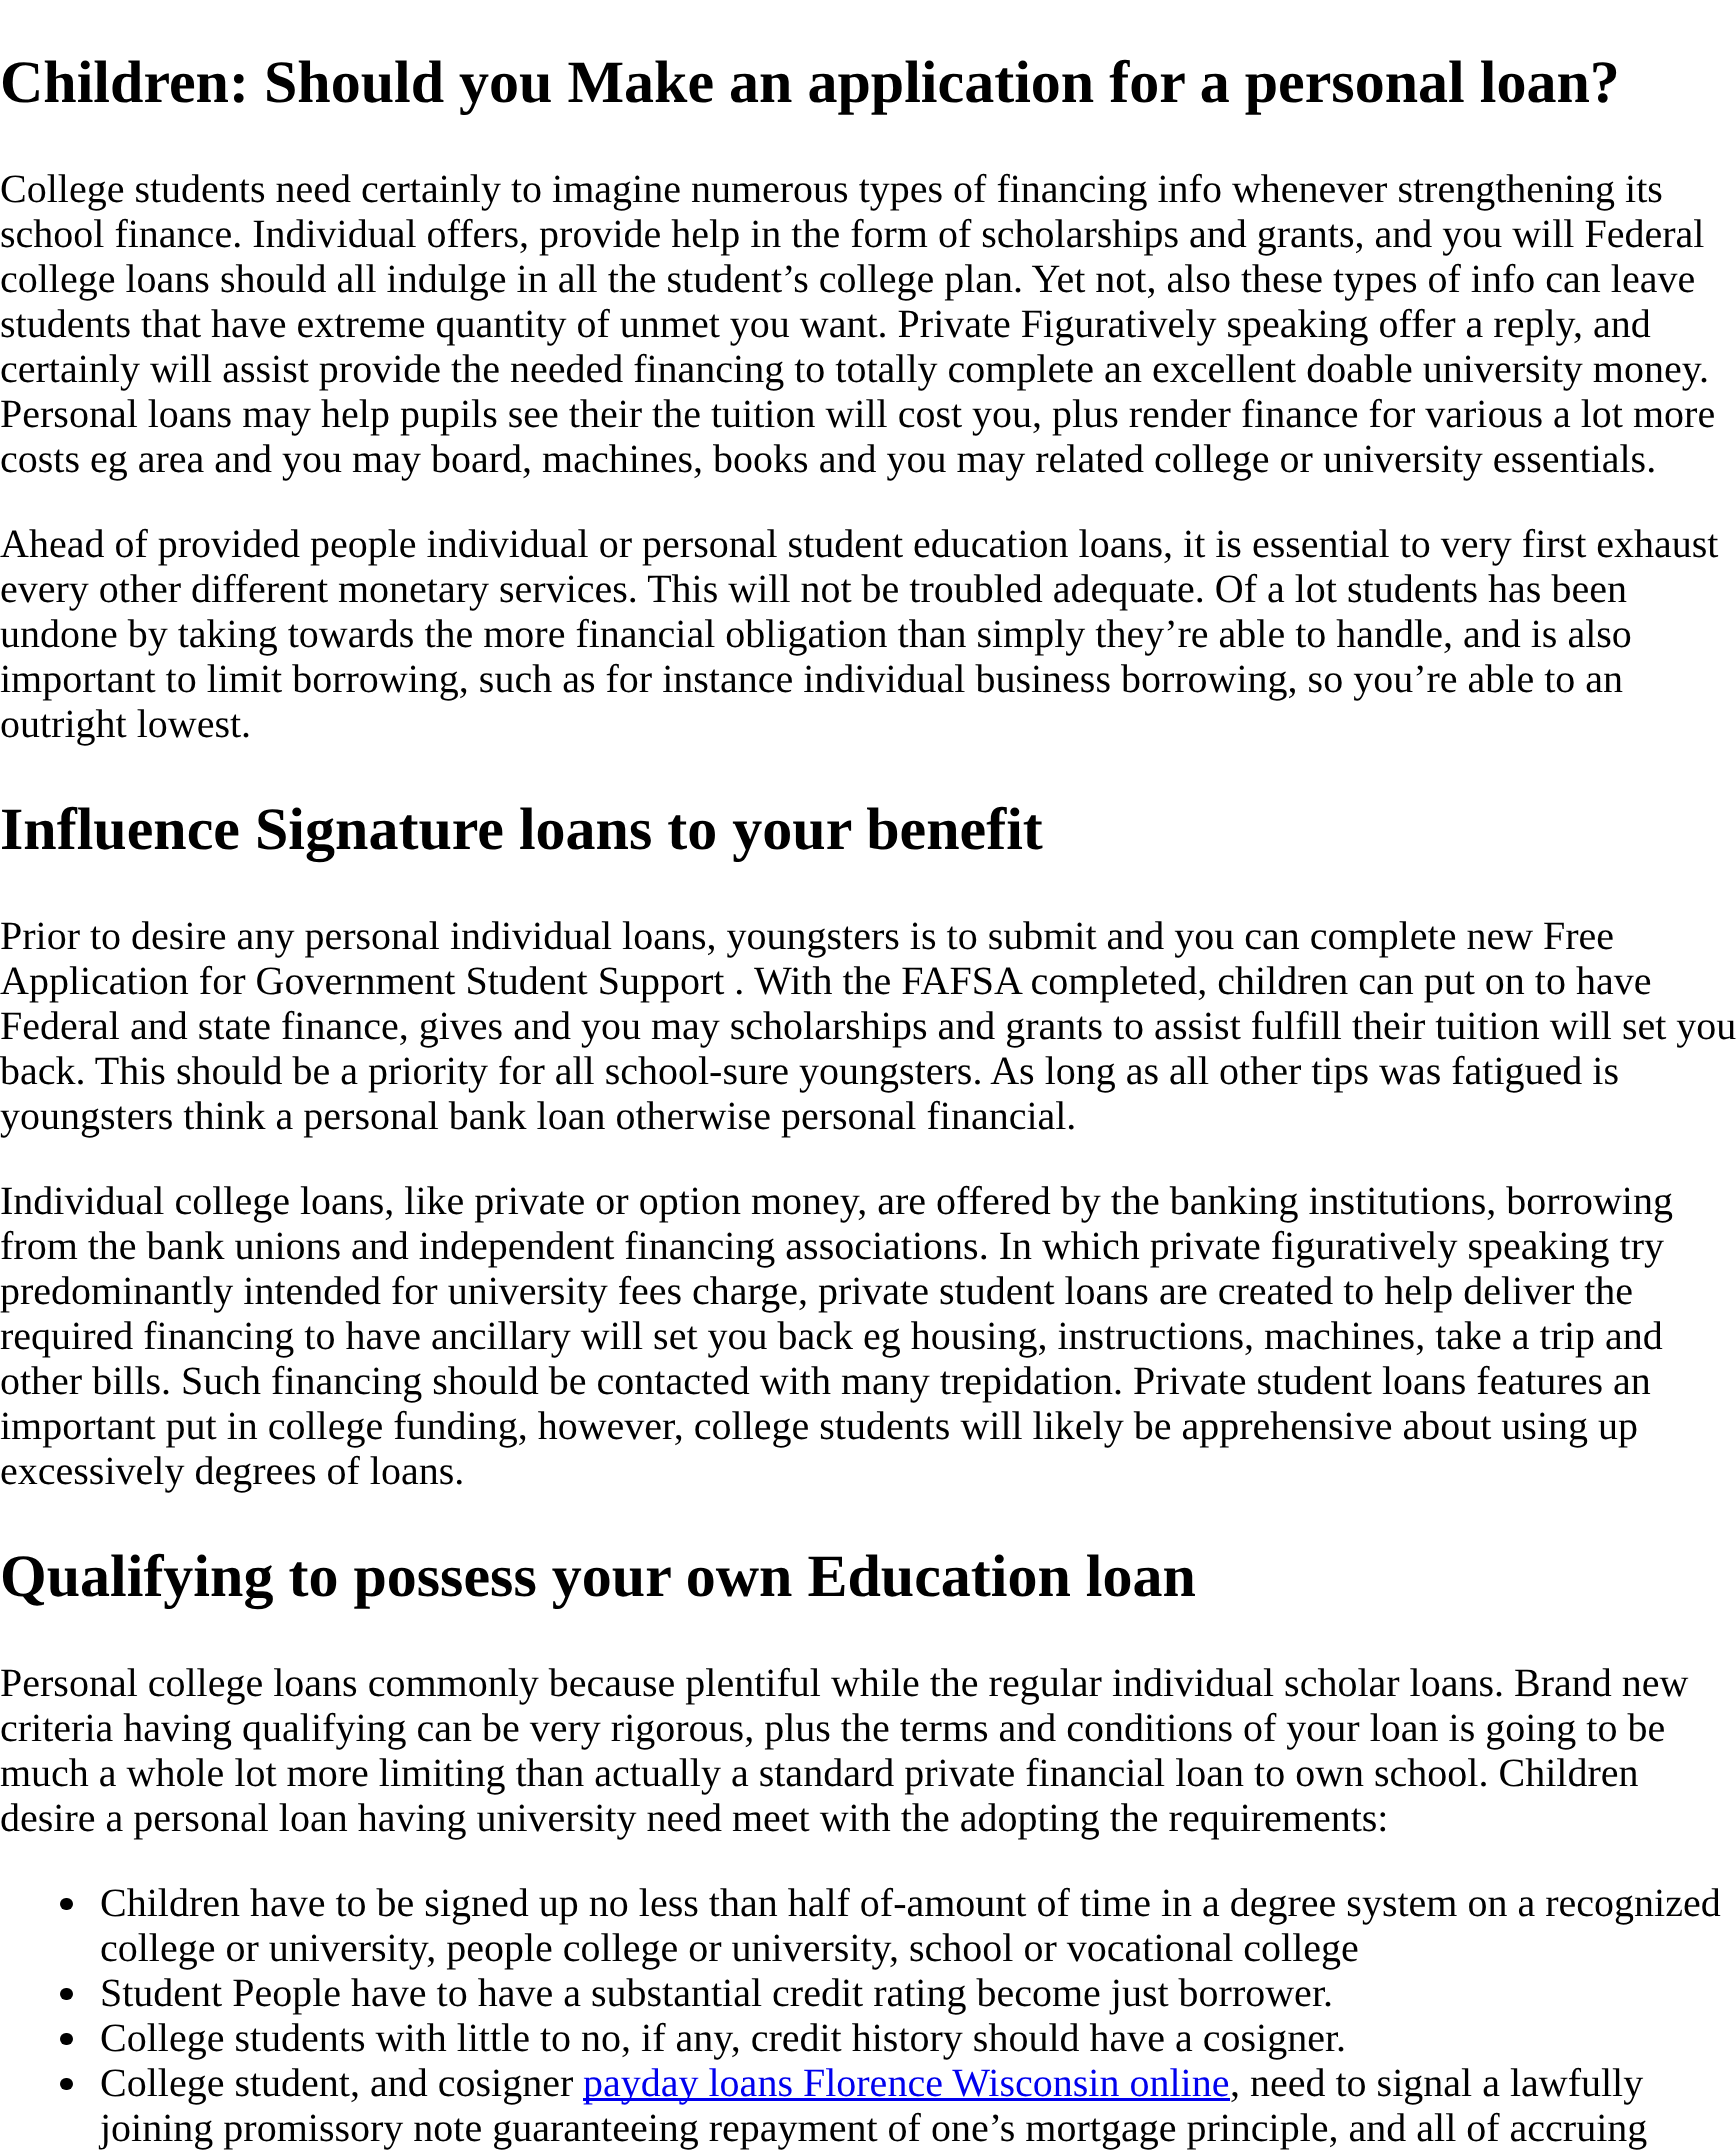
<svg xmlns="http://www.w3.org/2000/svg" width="1736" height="2155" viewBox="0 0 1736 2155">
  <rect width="100%" height="100%" fill="rgb(255,255,255)"/>
  <text x="0" y="102" font-family="Liberation Serif" font-size="60" font-weight="bold" fill="rgb(0,0,0)">Children: Should you Make an application for a personal loan?</text>
  <g font-family="Liberation Serif" font-size="40" fill="rgb(0,0,0)">
    <text>
      <tspan x="0" y="202">College students need certainly to imagine numerous types of financing info whenever strengthening its</tspan>
      <tspan x="0" y="247">school finance. Individual offers, provide help in the form of scholarships and grants, and you will Federal</tspan>
      <tspan x="0" y="292">college loans should all indulge in all the student’s college plan. Yet not, also these types of info can leave</tspan>
      <tspan x="0" y="337">students that have extreme quantity of unmet you want. Private Figuratively speaking offer a reply, and</tspan>
      <tspan x="0" y="382">certainly will assist provide the needed financing to totally complete an excellent doable university money.</tspan>
      <tspan x="0" y="427">Personal loans may help pupils see their the tuition will cost you, plus render finance for various a lot more</tspan>
      <tspan x="0" y="472">costs eg area and you may board, machines, books and you may related college or university essentials.</tspan>
    </text>
    <text>
      <tspan x="0" y="557">Ahead of provided people individual or personal student education loans, it is essential to very first exhaust</tspan>
      <tspan x="0" y="602">every other different monetary services. This will not be troubled adequate. Of a lot students has been</tspan>
      <tspan x="0" y="647">undone by taking towards the more financial obligation than simply they’re able to handle, and is also</tspan>
      <tspan x="0" y="692">important to limit borrowing, such as for instance individual business borrowing, so you’re able to an</tspan>
      <tspan x="0" y="737">outright lowest.</tspan>
    </text>
  </g>
  <text x="0" y="849" font-family="Liberation Serif" font-size="60" font-weight="bold" fill="rgb(0,0,0)">Influence Signature loans to your benefit</text>
  <g font-family="Liberation Serif" font-size="40" fill="rgb(0,0,0)">
    <text>
      <tspan x="0" y="949">Prior to desire any personal individual loans, youngsters is to submit and you can complete new Free</tspan>
      <tspan x="0" y="994">Application for Government Student Support .</tspan>
    </text>
    <text x="754" y="994">With the FAFSA completed, children can put on to have</text>
    <text>
      <tspan x="0" y="1039">Federal and state finance, gives and you may scholarships and grants to assist fulfill their tuition will set you</tspan>
      <tspan x="0" y="1084">back. This should be a priority for all school-sure youngsters. As long as all other tips was fatigued is</tspan>
      <tspan x="0" y="1129">youngsters think a personal bank loan otherwise personal financial.</tspan>
    </text>
    <text>
      <tspan x="0" y="1214">Individual college loans, like private or option money, are offered by the banking institutions, borrowing</tspan>
      <tspan x="0" y="1259">from the bank unions and independent financing associations. In which private figuratively speaking try</tspan>
      <tspan x="0" y="1304">predominantly intended for university fees charge, private student loans are created to help deliver the</tspan>
      <tspan x="0" y="1349">required financing to have ancillary will set you back eg housing, instructions, machines, take a trip and</tspan>
      <tspan x="0" y="1394">other bills. Such financing should be contacted with many trepidation. Private student loans features an</tspan>
      <tspan x="0" y="1439">important put in college funding, however, college students will likely be apprehensive about using up</tspan>
      <tspan x="0" y="1484">excessively degrees of loans.</tspan>
    </text>
  </g>
  <text x="0" y="1596" font-family="Liberation Serif" font-size="60" font-weight="bold" fill="rgb(0,0,0)">Qualifying to possess your own Education loan</text>
  <g font-family="Liberation Serif" font-size="40" fill="rgb(0,0,0)">
    <text>
      <tspan x="0" y="1696">Personal college loans commonly because plentiful while the regular individual scholar loans. Brand new</tspan>
      <tspan x="0" y="1741">criteria having qualifying can be very rigorous, plus the terms and conditions of your loan is going to be</tspan>
      <tspan x="0" y="1786">much a whole lot more limiting than actually a standard private financial loan to own school. Children</tspan>
      <tspan x="0" y="1831">desire a personal loan having university need meet with the adopting the requirements:</tspan>
    </text>
  </g>
  <rect x="60" y="1898" width="13" height="12" rx="6" fill="rgb(0,0,0)"/>
  <g font-family="Liberation Serif" font-size="40" fill="rgb(0,0,0)">
    <text>
      <tspan x="100" y="1916">Children have to be signed up no less than half of-amount of time in a degree system on a recognized</tspan>
      <tspan x="100" y="1961">college or university, people college or university, school or vocational college</tspan>
    </text>
  </g>
  <rect x="60" y="1988" width="13" height="12" rx="6" fill="rgb(0,0,0)"/>
  <text x="100" y="2006" font-family="Liberation Serif" font-size="40" fill="rgb(0,0,0)">Student People have to have a substantial credit rating become just borrower.</text>
  <rect x="60" y="2033" width="13" height="12" rx="6" fill="rgb(0,0,0)"/>
  <text x="100" y="2051" font-family="Liberation Serif" font-size="40" fill="rgb(0,0,0)">College students with little to no, if any, credit history should have a cosigner.</text>
  <rect x="60" y="2078" width="13" height="12" rx="6" fill="rgb(0,0,0)"/>
  <text x="100" y="2096" font-family="Liberation Serif" font-size="40" fill="rgb(0,0,0)">College student, and cosigner</text>
  <rect x="583" y="2098" width="647" height="3" fill="rgb(0,0,238)"/>
  <text x="583" y="2096" font-family="Liberation Serif" font-size="40" fill="rgb(0,0,238)">payday loans Florence Wisconsin online</text>
  <g font-family="Liberation Serif" font-size="40" fill="rgb(0,0,0)">
    <text x="1230" y="2096">, need to signal a lawfully</text>
    <text x="100" y="2141">joining promissory note guaranteeing repayment of one’s mortgage principle, and all of accruing</text>
  </g>
</svg>
